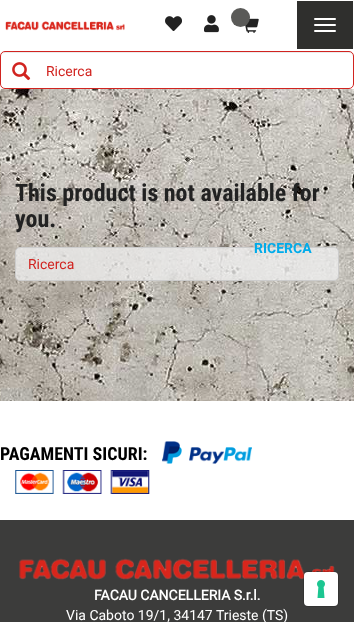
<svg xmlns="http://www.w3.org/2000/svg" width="354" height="622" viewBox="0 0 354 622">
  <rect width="100%" height="100%" fill="rgb(255,255,255)"/>
  <image x="5" y="21" width="120" height="10" href="pic1.png"/>
  <image x="165" y="16" width="17" height="15" href="pic2.png"/>
  <image x="204" y="15" width="15" height="18" href="pic3.png"/>
  <image x="245" y="18" width="14" height="15" href="pic4.png"/>
  <circle cx="240.5" cy="17.5" r="9.5" fill="rgb(90,90,88)"/>
  <rect x="297" y="1" width="56" height="48" fill="rgb(47,47,45)"/>
  <rect x="314" y="18" width="22" height="2" rx="1" fill="rgb(255,255,255)"/>
  <rect x="314" y="24" width="22" height="2" rx="1" fill="rgb(255,255,255)"/>
  <rect x="314" y="30" width="22" height="2" rx="1" fill="rgb(255,255,255)"/>
  <path d="M5 53H349C351 53 353 55 353 57C353 54 352 52 349 52H4L2 54L1 57C1 55 3 53 5 53Z" fill="rgb(236,236,236)"/>
  <rect x="0.5" y="51.5" width="353" height="37" rx="4.5" fill="none" stroke="rgb(209,36,32)"/>
  <image x="12" y="62" width="19" height="19" href="pic5.png"/>
  <text x="46" y="76" font-family="Roboto" font-size="14" fill="rgb(209,36,32)">Ricerca</text>
  <image x="0" y="89" width="354" height="312" href="pic6.png"/>
  <g font-family="Roboto Condensed" font-size="24" font-weight="bold" fill="rgb(34,34,34)">
    <text>
      <tspan x="15" y="201">This product is not available for</tspan>
      <tspan x="15" y="227">you.</tspan>
    </text>
  </g>
  <rect x="15.5" y="247.5" width="323" height="33" rx="4.5" fill="rgba(238,238,238,0.8)" stroke="rgb(204,204,204)"/>
  <text x="254" y="253" font-family="'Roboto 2'" font-size="14" font-weight="bold" fill="rgb(0,171,234)">RICERCA</text>
  <text x="28" y="269" font-family="Roboto" font-size="14" fill="rgb(209,36,32)">Ricerca</text>
  <text x="0" y="460" font-family="Roboto Condensed" font-size="18" font-weight="bold" fill="rgb(0,0,0)">PAGAMENTI SICURI:</text>
  <image x="162" y="441" width="90" height="23" href="pic7.png"/>
  <image x="15" y="470" width="135" height="24" href="pic8.png"/>
  <rect x="0" y="520" width="354" height="102" fill="rgb(60,60,59)"/>
  <image x="19" y="558" width="316" height="22" href="pic9.png"/>
  <text x="94" y="600" font-family="Roboto" font-size="14" font-weight="bold" fill="rgb(255,255,255)">FACAU CANCELLERIA S.r.l.</text>
  <text x="66" y="620" font-family="Roboto" font-size="14" fill="rgb(255,255,255)">Via Caboto 19/1, 34147 Trieste (TS)</text>
  <rect x="303.5" y="571.5" width="35" height="35" rx="4.5" fill="none" stroke="rgba(0,0,0,0.15)"/>
  <rect x="304" y="572" width="34" height="34" rx="4" fill="rgb(255,255,255)"/>
  <image x="317" y="580" width="8" height="18" href="pic10.png"/>
</svg>
